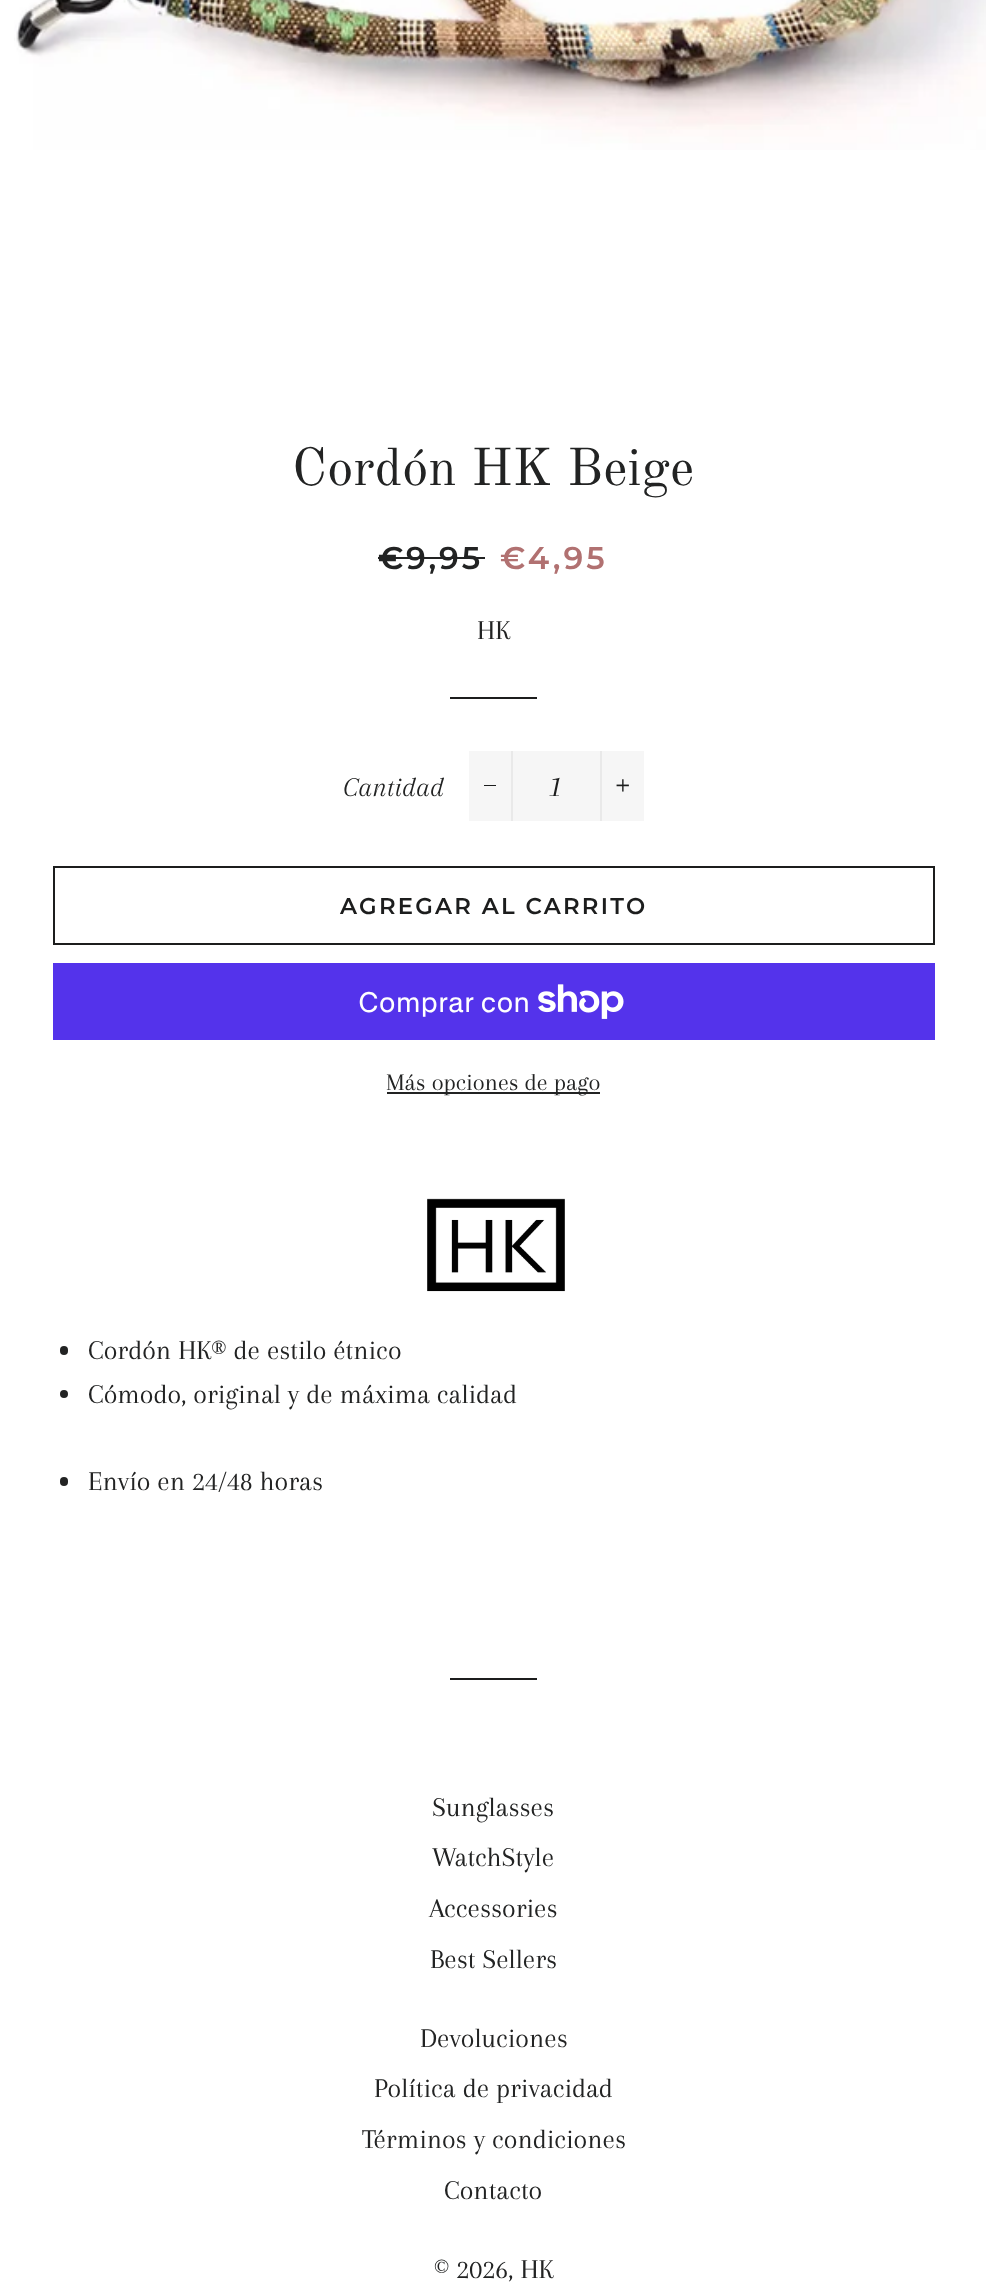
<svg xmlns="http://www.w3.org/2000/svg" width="986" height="2283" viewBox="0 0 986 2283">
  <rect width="100%" height="100%" fill="rgb(255,255,255)"/>
  <image x="14" y="0" width="972" height="150" href="pic1.png"/>
  <text x="292" y="485" font-family="Old Standard TT" font-size="52.5" fill="rgb(34,35,35)">Cordón HK Beige</text>
  <text x="378" y="569" font-family="Montserrat" font-size="31.5" font-weight="600" letter-spacing="3" fill="rgb(34,35,35)">€9,95</text>
  <rect x="378" y="557" width="107" height="2" fill="rgb(34,35,35)"/>
  <text x="500" y="569" font-family="Montserrat" font-size="31.5" font-weight="600" letter-spacing="3" fill="rgb(177,113,113)">€4,95</text>
  <text x="477" y="639" font-family="Arapey" font-size="28" fill="rgb(34,35,35)">HK</text>
  <rect x="450" y="697" width="87" height="2" fill="rgb(28,29,29)"/>
  <text x="343" y="796" font-family="Arapey" font-size="28" font-style="italic" fill="rgb(34,35,35)">Cantidad</text>
  <rect x="469" y="751" width="175" height="70" fill="rgb(246,246,246)"/>
  <rect x="511" y="751" width="2" height="70" fill="rgb(233,233,233)"/>
  <rect x="484" y="785" width="12" height="1" fill="rgb(28,29,29)"/>
  <text x="551" y="796" font-family="Arapey" font-size="31.5" font-style="italic" fill="rgb(28,29,29)">1</text>
  <rect x="600" y="751" width="2" height="70" fill="rgb(233,233,233)"/>
  <image x="616" y="779" width="13" height="13" href="pic2.png"/>
  <rect x="54" y="867" width="880" height="77" fill="none" stroke="rgb(28,29,29)" stroke-width="2"/>
  <text x="340" y="914" font-family="Montserrat" font-size="22.75" font-weight="600" letter-spacing="2.25" fill="rgb(28,29,29)">AGREGAR AL CARRITO</text>
  <rect x="53" y="963" width="882" height="77" fill="rgb(84,51,235)"/>
  <text x="358" y="1012" font-family="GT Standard" font-size="28" fill="rgb(255,255,255)">Comprar con</text>
  <image x="538" y="984" width="86" height="35" href="pic3.png"/>
  <rect x="387" y="1092" width="213" height="2" fill="rgb(34,35,35)"/>
  <text x="386" y="1090" font-family="Arapey" font-size="24.5" fill="rgb(34,35,35)">Más opciones de pago</text>
  <image x="427" y="1198" width="138" height="94" href="pic4.png"/>
  <rect x="60" y="1346" width="8" height="9" rx="4" fill="rgb(34,35,35)"/>
  <text x="88" y="1359" font-family="Arapey" font-size="28" fill="rgb(34,35,35)">Cordón HK® de estilo étnico</text>
  <circle cx="64" cy="1394" r="4" fill="rgb(34,35,35)"/>
  <text x="88" y="1403" font-family="Arapey" font-size="28" fill="rgb(34,35,35)">Cómodo, original y de máxima calidad</text>
  <rect x="60" y="1477" width="8" height="9" rx="4" fill="rgb(34,35,35)"/>
  <text x="88" y="1490" font-family="Arapey" font-size="28" fill="rgb(34,35,35)">Envío en 24/48 horas</text>
  <rect x="450" y="1678" width="87" height="2" fill="rgb(28,29,29)"/>
  <g font-family="Arapey" font-size="28" fill="rgb(34,35,35)">
    <text>
      <tspan x="432" y="1816">Sunglasses</tspan>
      <tspan x="432" y="1866">WatchStyle</tspan>
    </text>
    <text x="429" y="1917">Accessories</text>
    <text x="430" y="1968">Best Sellers</text>
    <text x="420" y="2047">Devoluciones</text>
    <text x="374" y="2097">Política de privacidad</text>
    <text x="362" y="2148">Términos y condiciones</text>
    <text x="444" y="2199">Contacto</text>
    <text x="434" y="2278">© 2026, HK</text>
  </g>
</svg>
